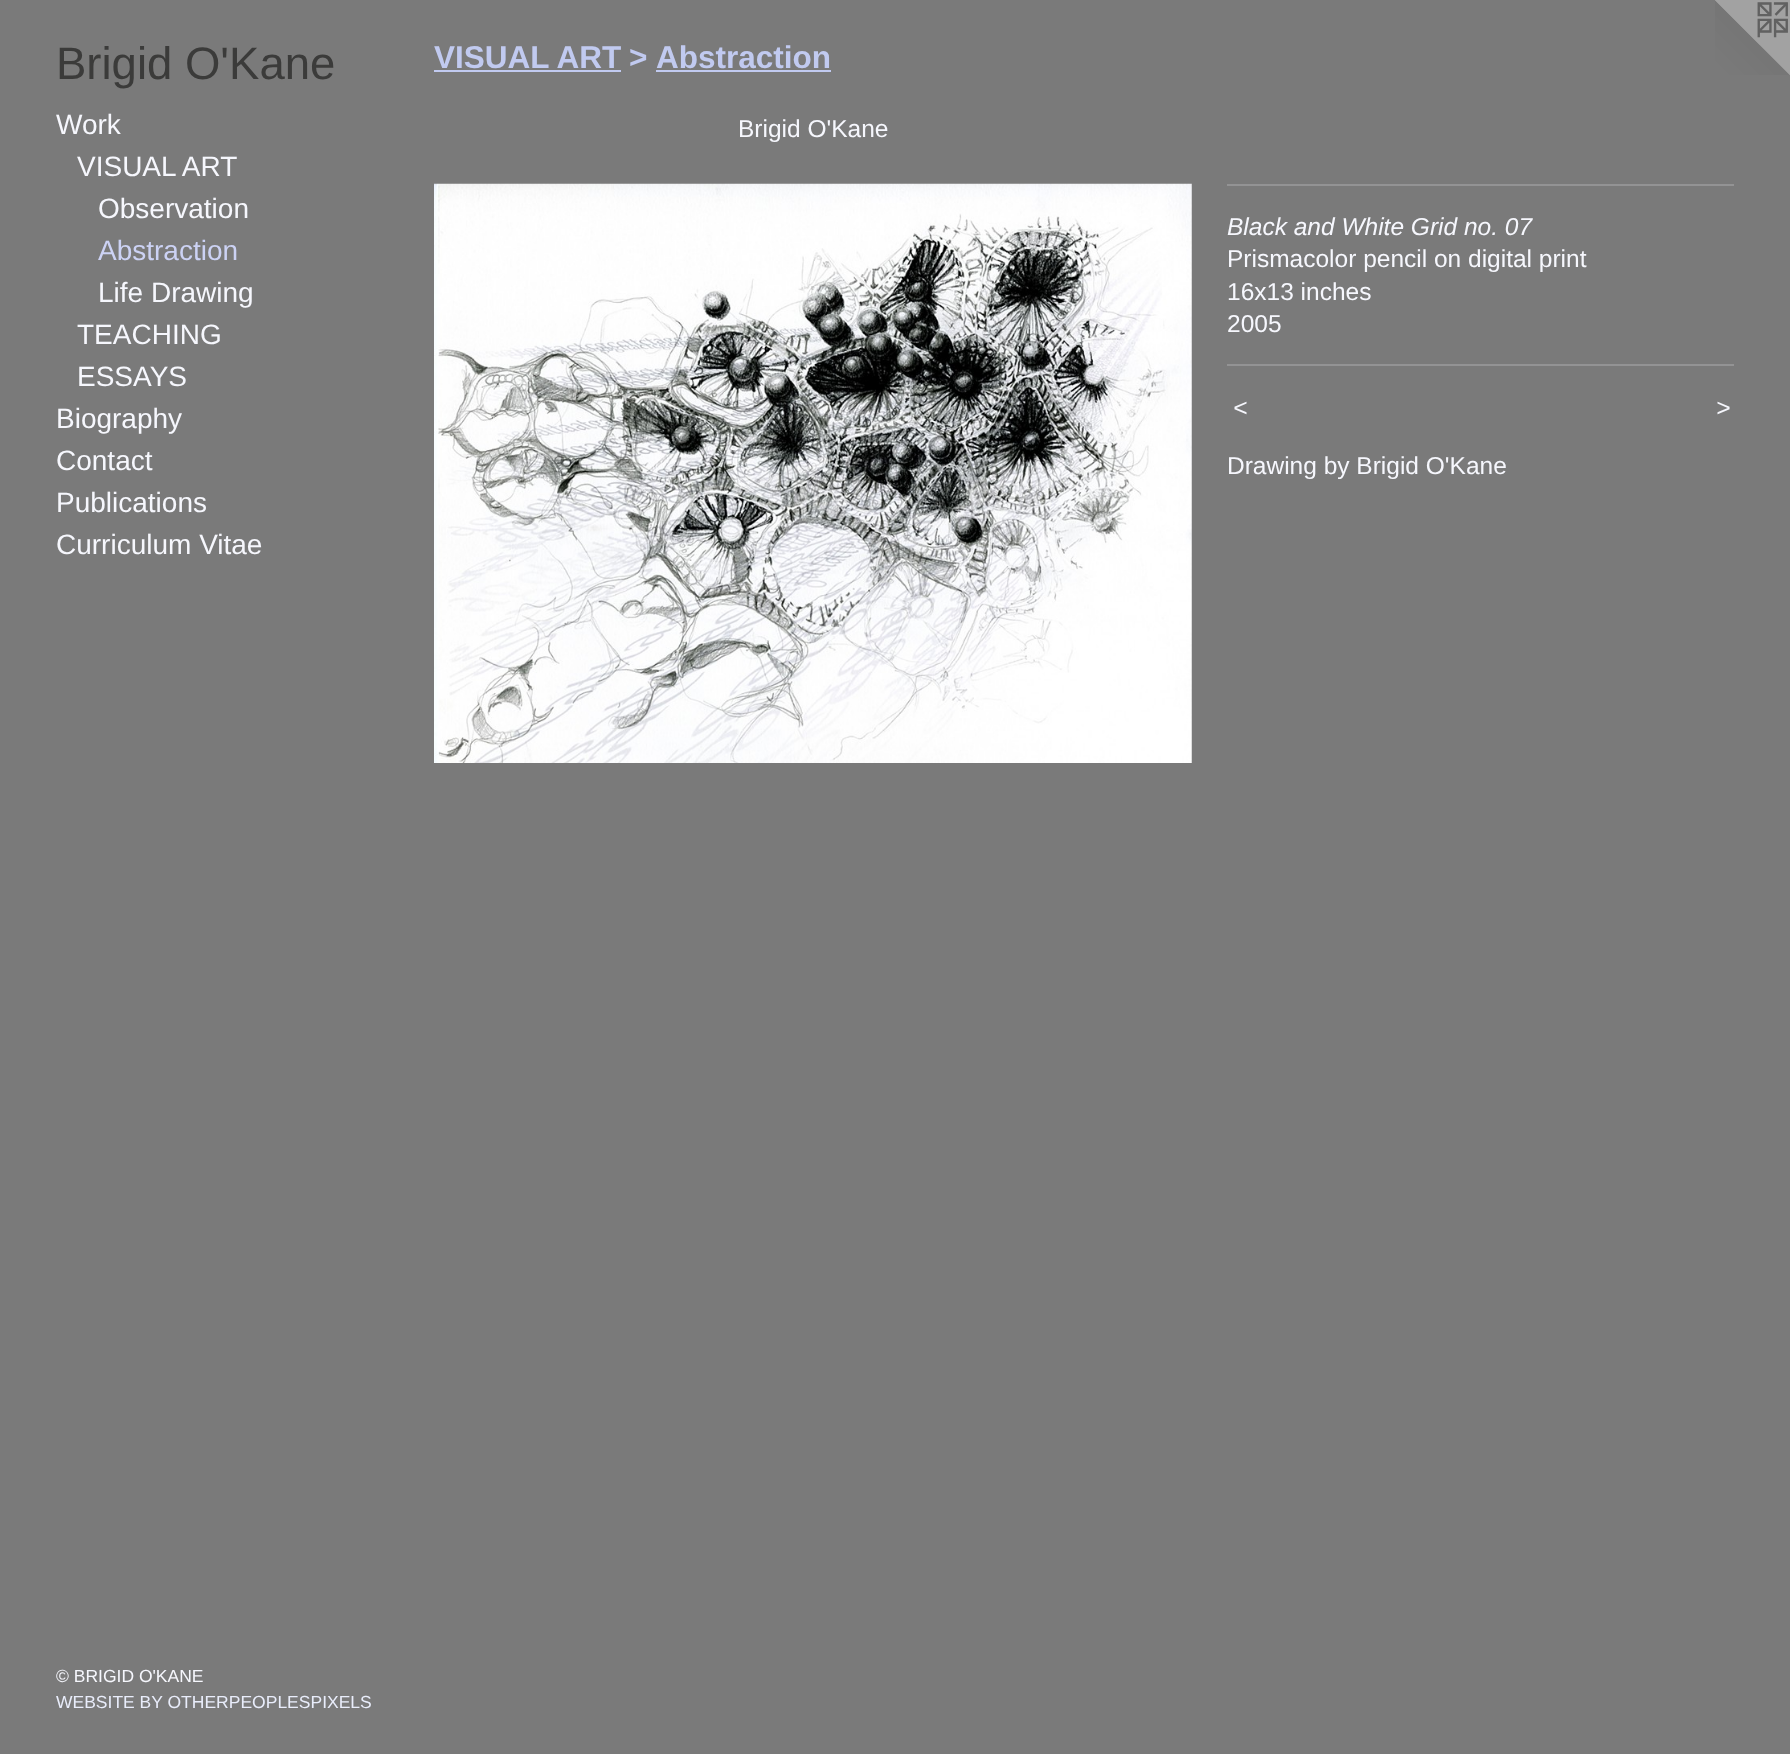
<svg xmlns="http://www.w3.org/2000/svg" width="1790" height="1754" viewBox="0 0 1790 1754">
  <rect width="100%" height="100%" fill="rgb(122,122,122)"/>
  <text x="56" y="79" font-family="Liberation Sans" font-size="45.5" fill="rgb(59,59,58)">Brigid O'Kane</text>
  <g font-family="Liberation Sans" font-size="28" fill="rgb(246,247,253)">
    <text x="56" y="134">Work</text>
    <text x="77" y="176">VISUAL ART</text>
    <text x="98" y="218">Observation</text>
  </g>
  <text x="98" y="260" font-family="Liberation Sans" font-size="28" fill="rgb(204,210,244)">Abstraction</text>
  <g font-family="Liberation Sans" font-size="28" fill="rgb(246,247,253)">
    <text x="98" y="302">Life Drawing</text>
    <text>
      <tspan x="77" y="344">TEACHING</tspan>
      <tspan x="77" y="386">ESSAYS</tspan>
    </text>
    <text>
      <tspan x="56" y="428">Biography</tspan>
      <tspan x="56" y="470">Contact</tspan>
      <tspan x="56" y="512">Publications</tspan>
      <tspan x="56" y="554">Curriculum Vitae</tspan>
    </text>
  </g>
  <text x="56" y="1682" font-family="Liberation Sans" font-size="17.5" fill="rgb(246,247,253)">© BRIGID O'KANE</text>
  <text x="56" y="1708" font-family="Liberation Sans" font-size="17.5" fill="rgb(233,237,251)">WEBSITE BY OTHERPEOPLESPIXELS</text>
  <image x="1715" y="0" width="75" height="75" href="pic1.png"/>
  <text x="434" y="68" font-family="Liberation Sans" font-size="31.5" font-weight="bold" fill="rgb(193,202,240)">VISUAL ART</text>
  <rect x="434" y="70" width="187" height="2" fill="rgb(193,202,240)"/>
  <g font-family="Liberation Sans" font-size="31.5" font-weight="bold" fill="rgb(193,202,240)">
    <text x="629" y="68">&gt;</text>
    <text x="656" y="68">Abstraction</text>
  </g>
  <rect x="656" y="70" width="175" height="2" fill="rgb(193,202,240)"/>
  <text x="738" y="137" font-family="Liberation Sans" font-size="24.5" fill="rgb(246,247,253)">Brigid O'Kane</text>
  <image x="434" y="183" width="758" height="580" href="pic2.png"/>
  <rect x="1227" y="184" width="507" height="2" fill="rgb(147,147,148)"/>
  <text x="1227" y="235" font-family="Liberation Sans" font-size="24.5" font-style="italic" fill="rgb(246,247,253)">Black and White Grid no. 07</text>
  <g font-family="Liberation Sans" font-size="24.5" fill="rgb(246,247,253)">
    <text>
      <tspan x="1227" y="267">Prismacolor pencil on digital print</tspan>
      <tspan x="1227" y="300">16x13 inches</tspan>
      <tspan x="1227" y="332">2005</tspan>
    </text>
  </g>
  <rect x="1227" y="364" width="507" height="2" fill="rgb(147,147,148)"/>
  <g font-family="Liberation Sans" font-size="24.5" font-style="italic" letter-spacing="2" fill="rgb(246,247,253)">
    <text x="1233" y="416">&lt;</text>
    <text x="1716" y="416">&gt;</text>
  </g>
  <text x="1227" y="474" font-family="Liberation Sans" font-size="24.5" fill="rgb(246,247,253)">Drawing by Brigid O'Kane</text>
</svg>
